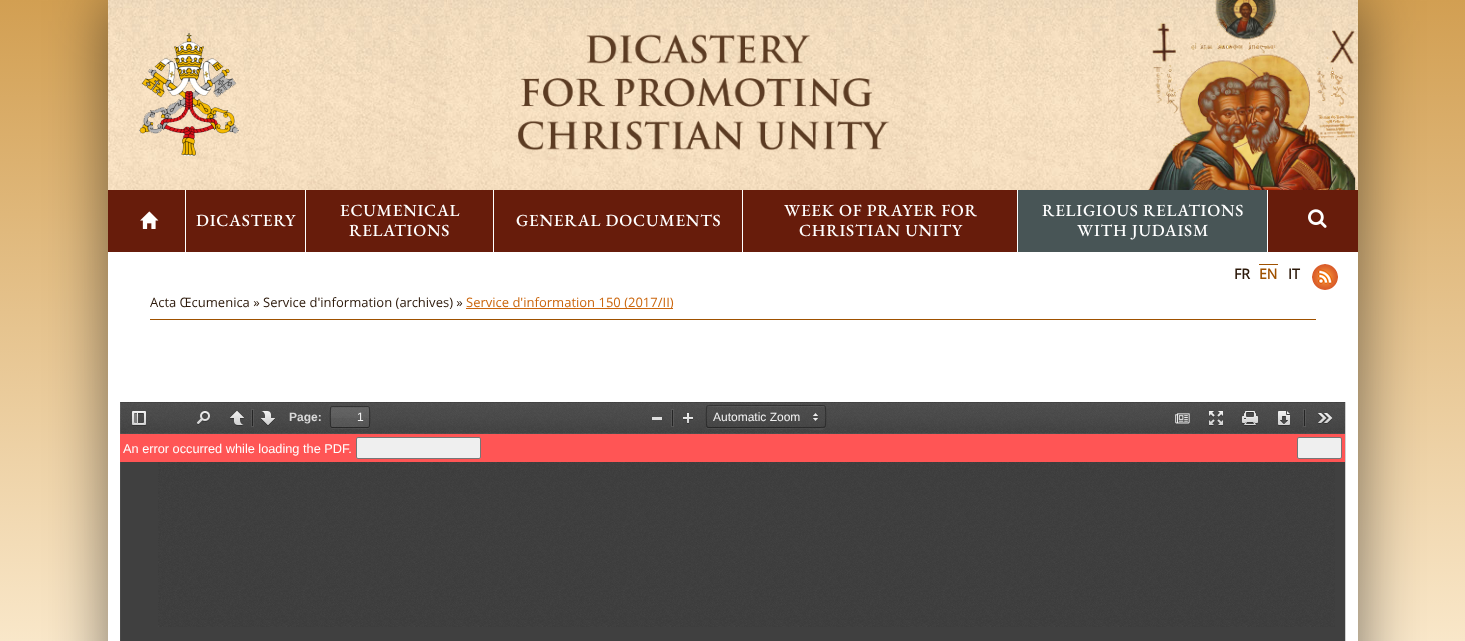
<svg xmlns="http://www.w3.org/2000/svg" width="1465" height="641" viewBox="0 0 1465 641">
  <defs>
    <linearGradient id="g1" gradientUnits="userSpaceOnUse" x1="733" y1="0" x2="733" y2="641"><stop offset="0" stop-color="rgb(210,159,82)"/><stop offset="1" stop-color="rgb(249,231,201)"/></linearGradient>
    <linearGradient id="g2" gradientUnits="userSpaceOnUse" x1="350" y1="407" x2="350" y2="427"><stop offset="0" stop-color="rgb(255,255,255)" stop-opacity="0.05"/><stop offset="1" stop-color="rgb(255,255,255)" stop-opacity="0"/></linearGradient>
  </defs>
  <rect width="100%" height="100%" fill="rgb(255,255,255)"/>
  <rect x="0" y="0" width="1465" height="641" fill="url(#g1)"/>
  <rect x="109" y="1" width="1250" height="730" fill="rgba(0,0,0,0.5)" filter="blur(30px)"/>
  <image x="108" y="0" width="1250" height="190" href="pic1.png"/>
  <image x="139" y="33" width="100" height="123" href="pic2.png"/>
  <image x="517" y="34" width="373" height="117" href="pic3.png"/>
  <image x="1148" y="0" width="208" height="190" href="pic4.png"/>
  <rect x="108" y="190" width="1250" height="62" fill="rgb(103,28,11)"/>
  <rect x="185" y="190" width="1" height="62" fill="rgb(255,255,255)"/>
  <image x="140" y="211" width="19" height="18" href="pic5.png"/>
  <rect x="305" y="190" width="1" height="62" fill="rgb(255,255,255)"/>
  <text x="196" y="226" font-family="EB Garamond" font-size="17" font-weight="500" letter-spacing="0.75" fill="rgb(255,255,255)">DICASTERY</text>
  <rect x="493" y="190" width="1" height="62" fill="rgb(255,255,255)"/>
  <g font-family="EB Garamond" font-size="17" font-weight="500" letter-spacing="0.75" fill="rgb(255,255,255)">
    <text x="340" y="216">ECUMENICAL</text>
    <text x="349" y="236">RELATIONS</text>
  </g>
  <rect x="742" y="190" width="1" height="62" fill="rgb(255,255,255)"/>
  <text x="516" y="226" font-family="EB Garamond" font-size="17" font-weight="500" letter-spacing="0.75" fill="rgb(255,255,255)">GENERAL DOCUMENTS</text>
  <rect x="1017" y="190" width="1" height="62" fill="rgb(255,255,255)"/>
  <g font-family="EB Garamond" font-size="17" font-weight="500" letter-spacing="0.75" fill="rgb(255,255,255)">
    <text x="784" y="216">WEEK OF PRAYER FOR</text>
    <text x="799" y="236">CHRISTIAN UNITY</text>
  </g>
  <rect x="1018" y="190" width="249" height="62" fill="rgb(72,85,86)"/>
  <rect x="1267" y="190" width="1" height="62" fill="rgb(255,255,255)"/>
  <g font-family="EB Garamond" font-size="17" font-weight="500" letter-spacing="0.75" fill="rgb(255,255,255)">
    <text x="1042" y="216">RELIGIOUS RELATIONS</text>
    <text x="1077" y="236">WITH JUDAISM</text>
  </g>
  <image x="1308" y="209" width="19" height="19" href="pic6.png"/>
  <rect x="108" y="252" width="1250" height="389" fill="rgb(255,255,255)"/>
  <text x="1234" y="279" font-family="Open Sans" font-size="14" font-weight="bold" fill="rgb(43,24,9)">FR</text>
  <text x="1259" y="279" font-family="Open Sans" font-size="14" font-weight="bold" fill="rgb(159,81,0)">EN</text>
  <rect x="1259" y="264" width="19" height="1" fill="rgb(159,81,0)"/>
  <text x="1288" y="279" font-family="Open Sans" font-size="14" font-weight="bold" fill="rgb(43,24,9)">IT</text>
  <image x="1312" y="264" width="26" height="26" href="pic7.png"/>
  <rect x="150" y="319" width="1166" height="1" fill="rgb(159,81,0)"/>
  <text x="150" y="307" font-family="Open Sans" font-size="13" fill="rgb(43,24,9)">Acta Œcumenica » Service d'information (archives) »</text>
  <rect x="466" y="308" width="207" height="1" fill="rgb(203,102,13)"/>
  <text x="466" y="307" font-family="Open Sans" font-size="13" fill="rgb(203,102,13)">Service d'information 150 (2017/II)</text>
  <rect x="1345" y="402" width="1" height="239" fill="rgb(207,207,207)"/>
  <rect x="120" y="402" width="1225" height="239" fill="rgb(64,64,64)"/>
  <image x="158" y="419" width="1177" height="208" href="pic8.png"/>
  <image x="120" y="402" width="1225" height="32" href="pic9.png"/>
  <rect x="120" y="433" width="1225" height="1" fill="rgba(255,255,255,0.05)"/>
  <rect x="120" y="402" width="1225" height="1" fill="rgba(0,0,0,0.15)"/>
  <rect x="120" y="402" width="1" height="32" fill="rgba(255,255,255,0.08)"/>
  <image x="132" y="411" width="14" height="15" href="pic10.png"/>
  <image x="197" y="411" width="13" height="14" href="pic11.png"/>
  <image x="230" y="411" width="14" height="15" href="pic12.png"/>
  <rect x="251.5" y="409.5" width="2" height="17" fill="none" stroke="rgba(255,255,255,0.08)"/>
  <rect x="252" y="410" width="1" height="16" fill="rgba(0,0,0,0.5)"/>
  <image x="261" y="411" width="14" height="15" href="pic13.png"/>
  <text x="289" y="421" font-family="Liberation Sans" font-size="12" font-weight="bold" fill="rgb(217,217,217)">Page:</text>
  <path d="M330 426C330 430 334 429 338 429H362C366 429 370 430 370 426C370 427 369 428 368 428H332C331 428 330 427 330 426Z" fill="rgba(255,255,255,0.05)"/>
  <rect x="331" y="407" width="38" height="20" fill="rgba(255,255,255,0.09)"/>
  <rect x="331" y="407" width="38" height="11" fill="url(#g2)"/>
  <path d="M332 408H356C364 408 367 406.5 368.5 407.5C369 408 369 409 369 410.5C369 405.5 368.5 407 362 407H338C332.5 407 331 405.5 331 410C331 408.5 331.5 408 332 408ZM331 426V425.5Z" fill="rgba(0,0,0,0.05)" fill-rule="evenodd"/>
  <path d="M331 407L332 406.5H368L369 407" fill="none" stroke="rgba(0,0,0,0.32)"/>
  <path d="M369 407C370 407.5 370 426.5 369 427" fill="none" stroke="rgba(0,0,0,0.38)"/>
  <path d="M369 427L368 427.5H332L331 427" fill="none" stroke="rgba(0,0,0,0.42)"/>
  <path d="M331 427C330 426.5 330 407.5 331 407" fill="none" stroke="rgba(0,0,0,0.38)"/>
  <text x="357" y="421" font-family="Liberation Sans" font-size="12" fill="rgb(242,242,242)">1</text>
  <rect x="652" y="417" width="10" height="3" fill="rgba(255,255,255,0.82)"/>
  <rect x="671.5" y="409.5" width="2" height="17" fill="none" stroke="rgba(255,255,255,0.08)"/>
  <rect x="672" y="410" width="1" height="16" fill="rgba(0,0,0,0.5)"/>
  <image x="683" y="413" width="10" height="11" href="pic14.png"/>
  <path d="M706 426C706 427 706 428 707 429H805C811 429 826 433 826 426C826 427 825 428 824 428H708C707 428 706 427 706 426Z" fill="rgba(255,255,255,0.05)"/>
  <image x="813" y="413" width="5" height="8" href="pic15.png"/>
  <path d="M708 407H825V408C825 407 825 406 824 406H708C707 406 707 407 707 408C707 407 707 407 708 407Z" fill="rgba(255,255,255,0.05)"/>
  <path d="M707 406C708 405 744 405.5 746.5 405.5H824L825 406" fill="none" stroke="rgba(0,0,0,0.32)"/>
  <path d="M825 406C826 407 826 426 825 427" fill="none" stroke="rgba(0,0,0,0.38)"/>
  <path d="M825 427C824 428 788 427.5 785.5 427.5H708L707 427" fill="none" stroke="rgba(0,0,0,0.42)"/>
  <path d="M707 427C706 426 706 407 707 406" fill="none" stroke="rgba(0,0,0,0.38)"/>
  <text x="713" y="421" font-family="Liberation Sans" font-size="12" fill="rgb(242,242,242)">Automatic Zoom</text>
  <image x="1175" y="413" width="15" height="11" href="pic16.png"/>
  <image x="1209" y="411" width="14" height="15" href="pic17.png"/>
  <image x="1242" y="411" width="16" height="15" href="pic18.png"/>
  <image x="1278" y="411" width="12" height="15" href="pic19.png"/>
  <rect x="1303.5" y="409.5" width="2" height="17" fill="none" stroke="rgba(255,255,255,0.08)"/>
  <rect x="1304" y="410" width="1" height="16" fill="rgba(0,0,0,0.5)"/>
  <image x="1318" y="413" width="15" height="11" href="pic20.png"/>
  <rect x="120" y="434" width="1225" height="28" fill="rgb(255,85,85)"/>
  <text x="123" y="453" font-family="Liberation Sans" font-size="12.75" fill="rgb(255,255,255)">An error occurred while loading the PDF.</text>
  <rect x="356.5" y="437.5" width="124" height="21" rx="1.5" fill="rgb(239,239,239)" stroke="rgb(118,118,118)"/>
  <rect x="1297.5" y="437.5" width="44" height="21" rx="1.5" fill="rgb(239,239,239)" stroke="rgb(118,118,118)"/>
  <rect x="120" y="462" width="1" height="179" fill="rgb(74,74,74)"/>
</svg>
